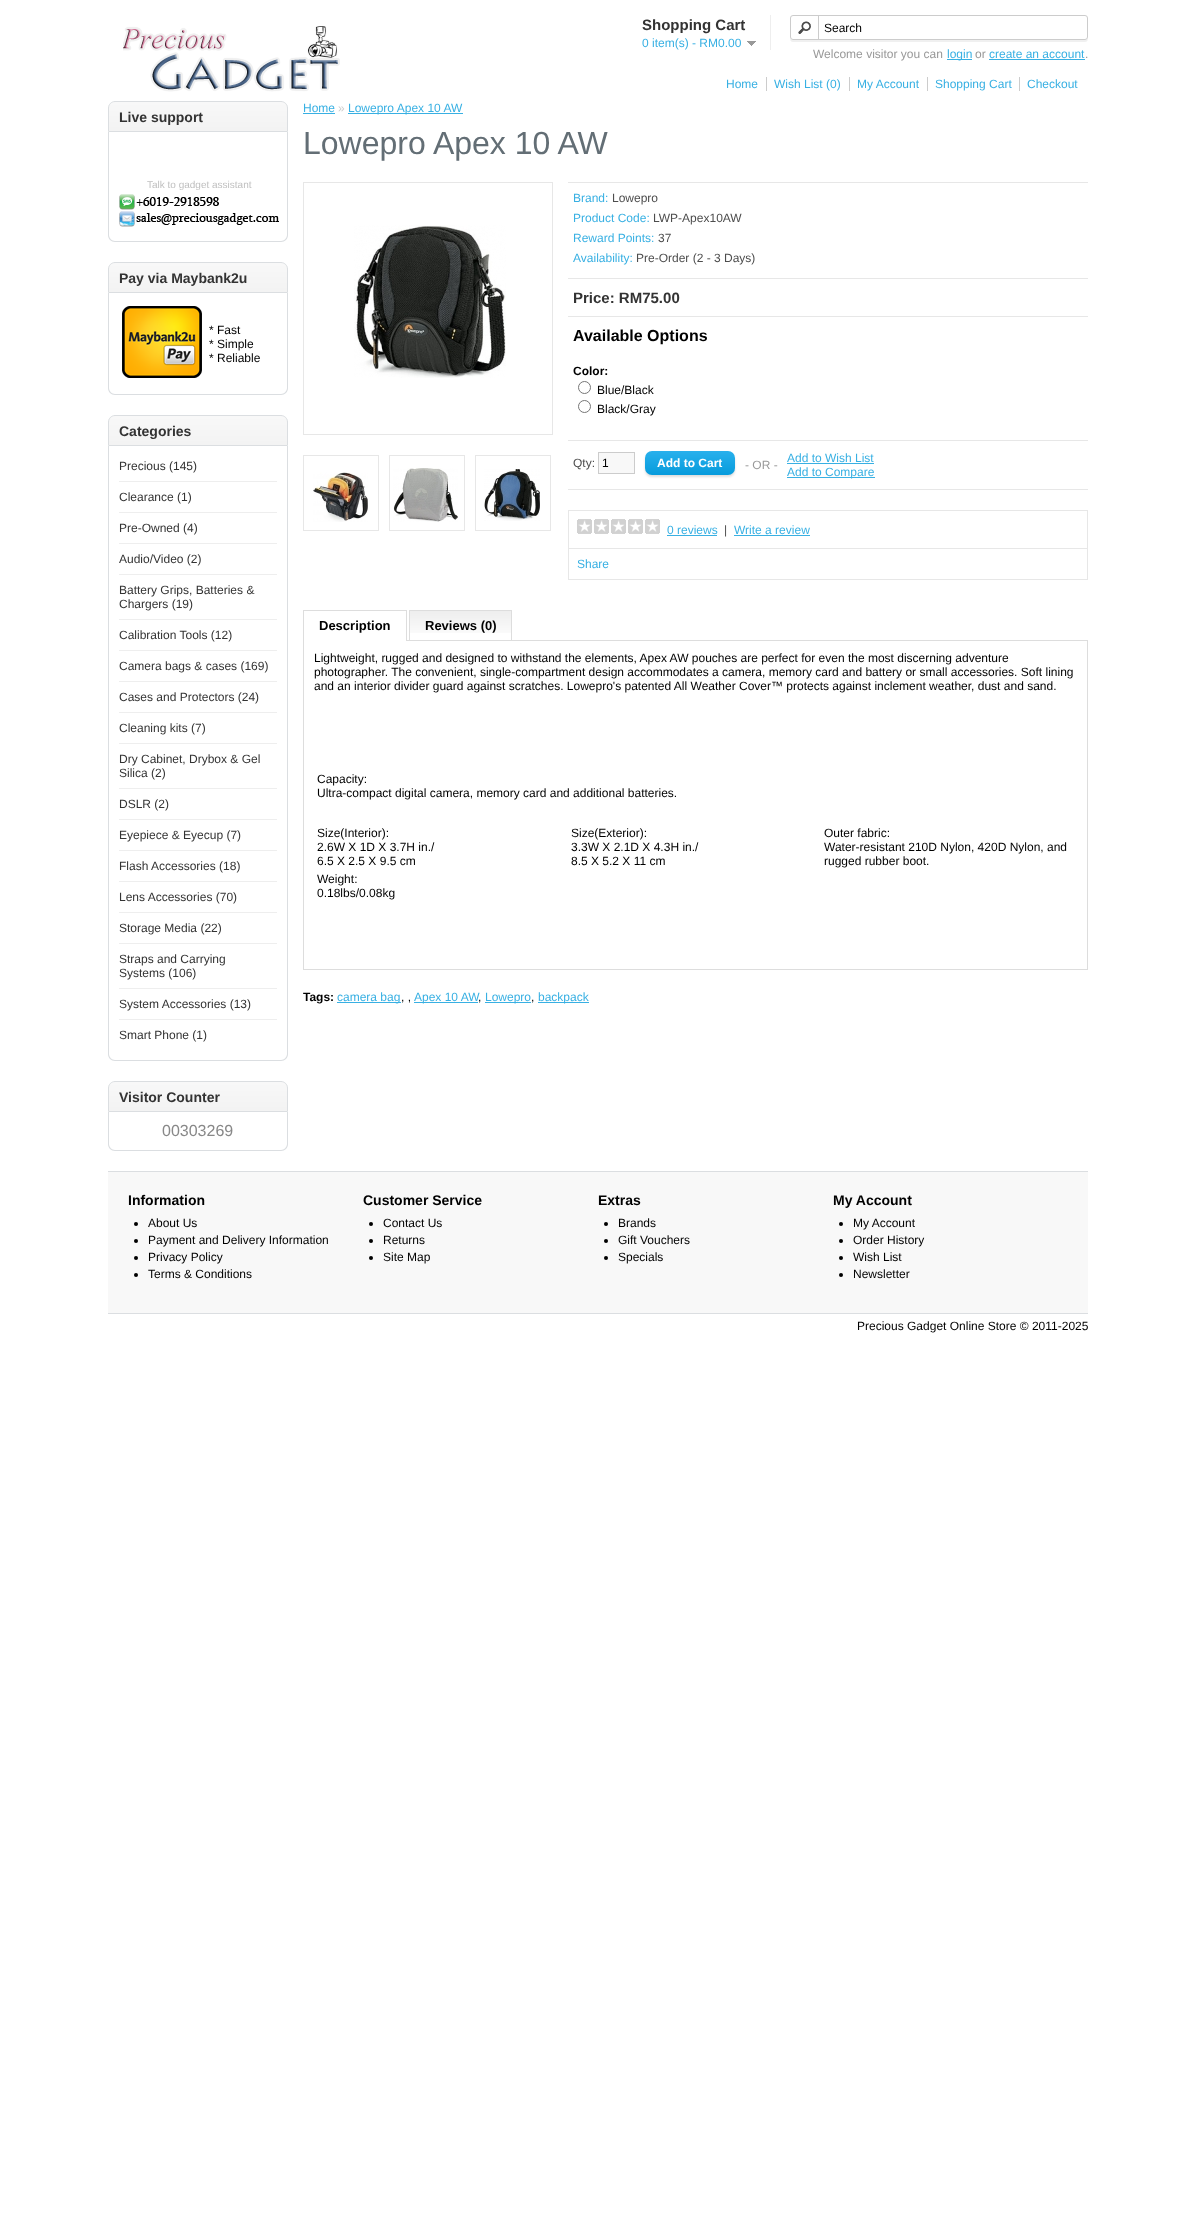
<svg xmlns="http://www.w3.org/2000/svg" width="1196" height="2228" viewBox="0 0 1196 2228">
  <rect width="100%" height="100%" fill="rgb(255,255,255)"/>
  <image x="123" y="26" width="217" height="66" href="pic1.png"/>
  <rect x="770" y="15" width="1" height="35" fill="rgb(238,238,238)"/>
  <text x="642" y="30" font-family="Liberation Sans" font-size="15" font-weight="bold" fill="rgb(51,51,51)">Shopping Cart</text>
  <text x="642" y="47" font-family="Liberation Sans" font-size="12" fill="rgb(56,176,227)">0 item(s) - RM0.00</text>
  <image x="747" y="41" width="9" height="5" href="pic2.png"/>
  <path d="M790 37C790 39 790 42 793 42H1085C1088 42 1088 39 1088 37C1088 39 1087 40 1085 40H793C791 40 790 39 790 37Z" fill="rgb(240,240,240)"/>
  <rect x="790.5" y="15.5" width="297" height="24" rx="2.5" fill="none" stroke="rgb(204,204,204)"/>
  <image x="798" y="21" width="13" height="13" href="pic3.png"/>
  <rect x="818" y="15" width="1" height="24" fill="rgb(204,204,204)"/>
  <text x="824" y="32" font-family="Liberation Sans" font-size="12" fill="rgb(0,0,0)">Search</text>
  <text x="813" y="58" font-family="Liberation Sans" font-size="12" fill="rgb(153,153,153)">Welcome visitor you can</text>
  <rect x="947" y="59" width="25" height="1" fill="rgb(56,176,227)"/>
  <text x="947" y="58" font-family="Liberation Sans" font-size="12" fill="rgb(56,176,227)">login</text>
  <text x="975" y="58" font-family="Liberation Sans" font-size="12" fill="rgb(153,153,153)">or</text>
  <text x="989" y="58" font-family="Liberation Sans" font-size="12" fill="rgb(56,176,227)">create an account</text>
  <rect x="989" y="59" width="96" height="1" fill="rgb(56,176,227)"/>
  <text x="1085" y="58" font-family="Liberation Sans" font-size="12" fill="rgb(153,153,153)">.</text>
  <text x="726" y="88" font-family="Liberation Sans" font-size="12" fill="rgb(56,176,227)">Home</text>
  <rect x="766" y="77" width="1" height="14" fill="rgb(204,204,204)"/>
  <text x="774" y="88" font-family="Liberation Sans" font-size="12" fill="rgb(56,176,227)">Wish List (0)</text>
  <rect x="849" y="77" width="1" height="14" fill="rgb(204,204,204)"/>
  <text x="857" y="88" font-family="Liberation Sans" font-size="12" fill="rgb(56,176,227)">My Account</text>
  <rect x="927" y="77" width="1" height="14" fill="rgb(204,204,204)"/>
  <text x="935" y="88" font-family="Liberation Sans" font-size="12" fill="rgb(56,176,227)">Shopping Cart</text>
  <rect x="1019" y="77" width="1" height="14" fill="rgb(204,204,204)"/>
  <text x="1027" y="88" font-family="Liberation Sans" font-size="12" fill="rgb(56,176,227)">Checkout</text>
  <image x="108" y="102" width="180" height="29" href="pic4.png"/>
  <path d="M115 101.5H281C284.5 101.5 287.5 104.5 287.5 108V131.5H108.5V108C108.5 104.5 111.5 101.5 115 101.5Z" fill="none" stroke="rgb(219,222,225)"/>
  <text x="119" y="122" font-family="Liberation Sans" font-size="14" font-weight="bold" fill="rgb(51,51,51)">Live support</text>
  <path d="M108 132H288V235C288 239 285 242 281 242H115C111 242 108 239 108 235ZM109 132H287V235C287 238 284 241 281 241H115C112 241 109 238 109 235Z" fill="rgb(219,222,225)" fill-rule="evenodd"/>
  <text x="147" y="188" font-family="Liberation Sans" font-size="10" fill="rgb(191,191,191)">Talk to gadget assistant</text>
  <image x="119" y="194" width="160" height="33" href="pic5.png"/>
  <image x="108" y="263" width="180" height="29" href="pic4.png"/>
  <path d="M115 262.5H281C284.5 262.5 287.5 265.5 287.5 269V292.5H108.5V269C108.5 265.5 111.5 262.5 115 262.5Z" fill="none" stroke="rgb(219,222,225)"/>
  <text x="119" y="283" font-family="Liberation Sans" font-size="14" font-weight="bold" fill="rgb(51,51,51)">Pay via Maybank2u</text>
  <path d="M108 293H288V388C288 392 285 395 281 395H115C111 395 108 392 108 388ZM109 293H287V388C287 391 284 394 281 394H115C112 394 109 391 109 388Z" fill="rgb(219,222,225)" fill-rule="evenodd"/>
  <image x="122" y="306" width="80" height="72" href="pic6.png"/>
  <g font-family="Liberation Sans" font-size="12" fill="rgb(0,0,0)">
    <text>
      <tspan x="209" y="334">* Fast</tspan>
      <tspan x="209" y="348">* Simple</tspan>
      <tspan x="209" y="362">* Reliable</tspan>
    </text>
  </g>
  <image x="108" y="416" width="180" height="29" href="pic4.png"/>
  <path d="M115 415.5H281C284.5 415.5 287.5 418.5 287.5 422V445.5H108.5V422C108.5 418.5 111.5 415.5 115 415.5Z" fill="none" stroke="rgb(219,222,225)"/>
  <text x="119" y="436" font-family="Liberation Sans" font-size="14" font-weight="bold" fill="rgb(51,51,51)">Categories</text>
  <path d="M108 446H288V1054C288 1058 285 1061 281 1061H115C111 1061 108 1058 108 1054ZM109 446H287V1054C287 1057 284 1060 281 1060H115C112 1060 109 1057 109 1054Z" fill="rgb(219,222,225)" fill-rule="evenodd"/>
  <text x="119" y="470" font-family="Liberation Sans" font-size="12" fill="rgb(51,51,51)">Precious (145)</text>
  <rect x="119" y="481" width="158" height="1" fill="rgb(238,238,238)"/>
  <text x="119" y="501" font-family="Liberation Sans" font-size="12" fill="rgb(51,51,51)">Clearance (1)</text>
  <rect x="119" y="512" width="158" height="1" fill="rgb(238,238,238)"/>
  <text x="119" y="532" font-family="Liberation Sans" font-size="12" fill="rgb(51,51,51)">Pre-Owned (4)</text>
  <rect x="119" y="543" width="158" height="1" fill="rgb(238,238,238)"/>
  <text x="119" y="563" font-family="Liberation Sans" font-size="12" fill="rgb(51,51,51)">Audio/Video (2)</text>
  <rect x="119" y="574" width="158" height="1" fill="rgb(238,238,238)"/>
  <g font-family="Liberation Sans" font-size="12" fill="rgb(51,51,51)">
    <text>
      <tspan x="119" y="594">Battery Grips, Batteries &amp;</tspan>
      <tspan x="119" y="608">Chargers (19)</tspan>
    </text>
  </g>
  <rect x="119" y="619" width="158" height="1" fill="rgb(238,238,238)"/>
  <text x="119" y="639" font-family="Liberation Sans" font-size="12" fill="rgb(51,51,51)">Calibration Tools (12)</text>
  <rect x="119" y="650" width="158" height="1" fill="rgb(238,238,238)"/>
  <text x="119" y="670" font-family="Liberation Sans" font-size="12" fill="rgb(51,51,51)">Camera bags &amp; cases (169)</text>
  <rect x="119" y="681" width="158" height="1" fill="rgb(238,238,238)"/>
  <text x="119" y="701" font-family="Liberation Sans" font-size="12" fill="rgb(51,51,51)">Cases and Protectors (24)</text>
  <rect x="119" y="712" width="158" height="1" fill="rgb(238,238,238)"/>
  <text x="119" y="732" font-family="Liberation Sans" font-size="12" fill="rgb(51,51,51)">Cleaning kits (7)</text>
  <rect x="119" y="743" width="158" height="1" fill="rgb(238,238,238)"/>
  <g font-family="Liberation Sans" font-size="12" fill="rgb(51,51,51)">
    <text>
      <tspan x="119" y="763">Dry Cabinet, Drybox &amp; Gel</tspan>
      <tspan x="119" y="777">Silica (2)</tspan>
    </text>
  </g>
  <rect x="119" y="788" width="158" height="1" fill="rgb(238,238,238)"/>
  <text x="119" y="808" font-family="Liberation Sans" font-size="12" fill="rgb(51,51,51)">DSLR (2)</text>
  <rect x="119" y="819" width="158" height="1" fill="rgb(238,238,238)"/>
  <text x="119" y="839" font-family="Liberation Sans" font-size="12" fill="rgb(51,51,51)">Eyepiece &amp; Eyecup (7)</text>
  <rect x="119" y="850" width="158" height="1" fill="rgb(238,238,238)"/>
  <text x="119" y="870" font-family="Liberation Sans" font-size="12" fill="rgb(51,51,51)">Flash Accessories (18)</text>
  <rect x="119" y="881" width="158" height="1" fill="rgb(238,238,238)"/>
  <text x="119" y="901" font-family="Liberation Sans" font-size="12" fill="rgb(51,51,51)">Lens Accessories (70)</text>
  <rect x="119" y="912" width="158" height="1" fill="rgb(238,238,238)"/>
  <text x="119" y="932" font-family="Liberation Sans" font-size="12" fill="rgb(51,51,51)">Storage Media (22)</text>
  <rect x="119" y="943" width="158" height="1" fill="rgb(238,238,238)"/>
  <g font-family="Liberation Sans" font-size="12" fill="rgb(51,51,51)">
    <text>
      <tspan x="119" y="963">Straps and Carrying</tspan>
      <tspan x="119" y="977">Systems (106)</tspan>
    </text>
  </g>
  <rect x="119" y="988" width="158" height="1" fill="rgb(238,238,238)"/>
  <text x="119" y="1008" font-family="Liberation Sans" font-size="12" fill="rgb(51,51,51)">System Accessories (13)</text>
  <rect x="119" y="1019" width="158" height="1" fill="rgb(238,238,238)"/>
  <text x="119" y="1039" font-family="Liberation Sans" font-size="12" fill="rgb(51,51,51)">Smart Phone (1)</text>
  <image x="108" y="1082" width="180" height="29" href="pic4.png"/>
  <path d="M115 1081.5H281C284.5 1081.5 287.5 1084.5 287.5 1088V1111.5H108.5V1088C108.5 1084.5 111.5 1081.5 115 1081.5Z" fill="none" stroke="rgb(219,222,225)"/>
  <text x="119" y="1102" font-family="Liberation Sans" font-size="14" font-weight="bold" fill="rgb(51,51,51)">Visitor Counter</text>
  <path d="M108 1112H288V1144C288 1148 285 1151 281 1151H115C111 1151 108 1148 108 1144ZM109 1112H287V1144C287 1147 284 1150 281 1150H115C112 1150 109 1147 109 1144Z" fill="rgb(219,222,225)" fill-rule="evenodd"/>
  <text x="162" y="1136" font-family="Liberation Sans" font-size="16" fill="rgb(136,136,136)">00303269</text>
  <text x="303" y="112" font-family="Liberation Sans" font-size="12" fill="rgb(56,176,227)">Home</text>
  <rect x="303" y="113" width="32" height="1" fill="rgb(56,176,227)"/>
  <text x="338" y="112" font-family="Liberation Sans" font-size="12" fill="rgb(204,204,204)">»</text>
  <rect x="348" y="113" width="115" height="1" fill="rgb(56,176,227)"/>
  <text x="348" y="112" font-family="Liberation Sans" font-size="12" fill="rgb(56,176,227)">Lowepro Apex 10 AW</text>
  <text x="303" y="154" font-family="Liberation Sans" font-size="32" fill="rgb(99,110,117)">Lowepro Apex 10 AW</text>
  <rect x="303.5" y="182.5" width="249" height="252" fill="none" stroke="rgb(231,231,231)"/>
  <image x="354" y="225" width="152" height="153" href="pic7.png"/>
  <rect x="303.5" y="455.5" width="75" height="75" fill="none" stroke="rgb(231,231,231)"/>
  <image x="313" y="472" width="55" height="50" href="pic8.png"/>
  <rect x="389.5" y="455.5" width="75" height="75" fill="none" stroke="rgb(231,231,231)"/>
  <image x="393" y="468" width="65" height="54" href="pic9.png"/>
  <rect x="475.5" y="455.5" width="75" height="75" fill="none" stroke="rgb(231,231,231)"/>
  <image x="484" y="469" width="56" height="52" href="pic10.png"/>
  <rect x="568" y="182" width="520" height="1" fill="rgb(231,231,231)"/>
  <rect x="568" y="278" width="520" height="1" fill="rgb(231,231,231)"/>
  <text x="573" y="202" font-family="Liberation Sans" font-size="12" fill="rgb(56,176,227)">Brand:</text>
  <text x="612" y="202" font-family="Liberation Sans" font-size="12" fill="rgb(77,77,77)">Lowepro</text>
  <text x="573" y="222" font-family="Liberation Sans" font-size="12" fill="rgb(56,176,227)">Product Code:</text>
  <text x="653" y="222" font-family="Liberation Sans" font-size="12" fill="rgb(77,77,77)">LWP-Apex10AW</text>
  <text x="573" y="242" font-family="Liberation Sans" font-size="12" fill="rgb(56,176,227)">Reward Points:</text>
  <text x="658" y="242" font-family="Liberation Sans" font-size="12" fill="rgb(77,77,77)">37</text>
  <text x="573" y="262" font-family="Liberation Sans" font-size="12" fill="rgb(56,176,227)">Availability:</text>
  <text x="636" y="262" font-family="Liberation Sans" font-size="12" fill="rgb(77,77,77)">Pre-Order (2 - 3 Days)</text>
  <rect x="568" y="316" width="520" height="1" fill="rgb(231,231,231)"/>
  <text x="573" y="303" font-family="Liberation Sans" font-size="15" font-weight="bold" fill="rgb(51,51,51)">Price: RM75.00</text>
  <rect x="568" y="440" width="520" height="1" fill="rgb(231,231,231)"/>
  <text x="573" y="341" font-family="Liberation Sans" font-size="16" font-weight="bold" fill="rgb(0,0,0)">Available Options</text>
  <text x="573" y="375" font-family="Liberation Sans" font-size="12" font-weight="bold" fill="rgb(0,0,0)">Color:</text>
  <circle cx="584.5" cy="387.5" r="6" fill="none" stroke="rgb(118,118,118)"/>
  <text x="597" y="394" font-family="Liberation Sans" font-size="12" fill="rgb(0,0,0)">Blue/Black</text>
  <circle cx="584.5" cy="406.5" r="6" fill="none" stroke="rgb(118,118,118)"/>
  <text x="597" y="413" font-family="Liberation Sans" font-size="12" fill="rgb(0,0,0)">Black/Gray</text>
  <rect x="568" y="489" width="520" height="1" fill="rgb(231,231,231)"/>
  <text x="573" y="467" font-family="Liberation Sans" font-size="12" fill="rgb(77,77,77)">Qty:</text>
  <rect x="598.5" y="452.5" width="36" height="21" fill="rgb(248,248,248)" stroke="rgb(204,204,204)"/>
  <text x="602" y="467" font-family="Liberation Sans" font-size="12" fill="rgb(0,0,0)">1</text>
  <rect x="645" y="453" width="90" height="24" rx="7" fill="rgb(221,221,221)" filter="blur(1px)"/>
  <image x="645" y="451" width="90" height="24" href="pic11.png"/>
  <text x="657" y="467" font-family="Liberation Sans" font-size="12" font-weight="bold" fill="rgb(255,255,255)">Add to Cart</text>
  <text x="745" y="469" font-family="Liberation Sans" font-size="12" fill="rgb(153,153,153)">- OR -</text>
  <text x="787" y="462" font-family="Liberation Sans" font-size="12" fill="rgb(56,176,227)">Add to Wish List</text>
  <rect x="787" y="463" width="87" height="1" fill="rgb(56,176,227)"/>
  <rect x="787" y="477" width="88" height="1" fill="rgb(56,176,227)"/>
  <text x="787" y="476" font-family="Liberation Sans" font-size="12" fill="rgb(56,176,227)">Add to Compare</text>
  <rect x="568" y="510" width="520" height="1" fill="rgb(231,231,231)"/>
  <rect x="1087" y="510" width="1" height="70" fill="rgb(231,231,231)"/>
  <rect x="568" y="510" width="1" height="70" fill="rgb(231,231,231)"/>
  <rect x="569" y="548" width="518" height="1" fill="rgb(231,231,231)"/>
  <image x="577" y="519" width="83" height="15" href="pic12.png"/>
  <text x="667" y="534" font-family="Liberation Sans" font-size="12" fill="rgb(56,176,227)">0 reviews</text>
  <rect x="667" y="535" width="50" height="1" fill="rgb(56,176,227)"/>
  <text x="724" y="534" font-family="Liberation Sans" font-size="12" fill="rgb(77,77,77)">|</text>
  <text x="734" y="534" font-family="Liberation Sans" font-size="12" fill="rgb(56,176,227)">Write a review</text>
  <rect x="734" y="535" width="76" height="1" fill="rgb(56,176,227)"/>
  <rect x="569" y="579" width="518" height="1" fill="rgb(231,231,231)"/>
  <text x="577" y="568" font-family="Liberation Sans" font-size="12" fill="rgb(56,176,227)">Share</text>
  <rect x="407" y="640" width="681" height="1" fill="rgb(221,221,221)"/>
  <rect x="303" y="610" width="104" height="1" fill="rgb(221,221,221)"/>
  <rect x="406" y="610" width="1" height="31" fill="rgb(221,221,221)"/>
  <rect x="303" y="610" width="1" height="31" fill="rgb(221,221,221)"/>
  <text x="319" y="630" font-family="Liberation Sans" font-size="13" font-weight="bold" fill="rgb(0,0,0)">Description</text>
  <image x="410" y="611" width="101" height="22" href="pic13.png"/>
  <rect x="409" y="610" width="103" height="1" fill="rgb(221,221,221)"/>
  <rect x="511" y="610" width="1" height="30" fill="rgb(221,221,221)"/>
  <rect x="409" y="610" width="1" height="30" fill="rgb(221,221,221)"/>
  <text x="425" y="630" font-family="Liberation Sans" font-size="13" font-weight="bold" fill="rgb(0,0,0)">Reviews (0)</text>
  <rect x="1087" y="641" width="1" height="329" fill="rgb(221,221,221)"/>
  <rect x="303" y="969" width="785" height="1" fill="rgb(221,221,221)"/>
  <rect x="303" y="641" width="1" height="329" fill="rgb(221,221,221)"/>
  <g font-family="Liberation Sans" font-size="12" fill="rgb(0,0,0)">
    <text>
      <tspan x="314" y="662">Lightweight, rugged and designed to withstand the elements, Apex AW pouches are perfect for even the most discerning adventure</tspan>
      <tspan x="314" y="676">photographer. The convenient, single-compartment design accommodates a camera, memory card and battery or small accessories. Soft lining</tspan>
      <tspan x="314" y="690">and an interior divider guard against scratches. Lowepro's patented All Weather Cover™ protects against inclement weather, dust and sand.</tspan>
    </text>
    <text>
      <tspan x="317" y="783">Capacity:</tspan>
      <tspan x="317" y="797">Ultra-compact digital camera, memory card and additional batteries.</tspan>
    </text>
    <text>
      <tspan x="317" y="837">Size(Interior):</tspan>
      <tspan x="317" y="851">2.6W X 1D X 3.7H in./</tspan>
      <tspan x="317" y="865">6.5 X 2.5 X 9.5 cm</tspan>
    </text>
    <text>
      <tspan x="571" y="837">Size(Exterior):</tspan>
      <tspan x="571" y="851">3.3W X 2.1D X 4.3H in./</tspan>
      <tspan x="571" y="865">8.5 X 5.2 X 11 cm</tspan>
    </text>
    <text>
      <tspan x="824" y="837">Outer fabric:</tspan>
      <tspan x="824" y="851">Water-resistant 210D Nylon, 420D Nylon, and</tspan>
      <tspan x="824" y="865">rugged rubber boot.</tspan>
    </text>
    <text>
      <tspan x="317" y="883">Weight:</tspan>
      <tspan x="317" y="897">0.18lbs/0.08kg</tspan>
    </text>
  </g>
  <text x="303" y="1001" font-family="Liberation Sans" font-size="12" font-weight="bold" fill="rgb(0,0,0)">Tags:</text>
  <rect x="337" y="1002" width="64" height="1" fill="rgb(56,176,227)"/>
  <text x="337" y="1001" font-family="Liberation Sans" font-size="12" fill="rgb(56,176,227)">camera bag</text>
  <text x="401" y="1001" font-family="Liberation Sans" font-size="12" fill="rgb(0,0,0)">, ,</text>
  <rect x="414" y="1002" width="64" height="1" fill="rgb(56,176,227)"/>
  <text x="414" y="1001" font-family="Liberation Sans" font-size="12" fill="rgb(56,176,227)">Apex 10 AW</text>
  <text x="478" y="1001" font-family="Liberation Sans" font-size="12" fill="rgb(0,0,0)">,</text>
  <rect x="485" y="1002" width="46" height="1" fill="rgb(56,176,227)"/>
  <text x="485" y="1001" font-family="Liberation Sans" font-size="12" fill="rgb(56,176,227)">Lowepro</text>
  <text x="531" y="1001" font-family="Liberation Sans" font-size="12" fill="rgb(0,0,0)">,</text>
  <rect x="538" y="1002" width="51" height="1" fill="rgb(56,176,227)"/>
  <text x="538" y="1001" font-family="Liberation Sans" font-size="12" fill="rgb(56,176,227)">backpack</text>
  <rect x="108" y="1172" width="980" height="141" fill="rgb(248,248,248)"/>
  <rect x="108" y="1171" width="980" height="1" fill="rgb(219,222,225)"/>
  <rect x="108" y="1313" width="980" height="1" fill="rgb(219,222,225)"/>
  <text x="128" y="1205" font-family="Liberation Sans" font-size="14" font-weight="bold" fill="rgb(0,0,0)">Information</text>
  <circle cx="136" cy="1224" r="2" fill="rgb(0,0,0)"/>
  <text x="148" y="1227" font-family="Liberation Sans" font-size="12" fill="rgb(0,0,0)">About Us</text>
  <circle cx="136" cy="1241" r="2" fill="rgb(0,0,0)"/>
  <text x="148" y="1244" font-family="Liberation Sans" font-size="12" fill="rgb(0,0,0)">Payment and Delivery Information</text>
  <circle cx="136" cy="1258" r="2" fill="rgb(0,0,0)"/>
  <text x="148" y="1261" font-family="Liberation Sans" font-size="12" fill="rgb(0,0,0)">Privacy Policy</text>
  <circle cx="136" cy="1275" r="2" fill="rgb(0,0,0)"/>
  <text x="148" y="1278" font-family="Liberation Sans" font-size="12" fill="rgb(0,0,0)">Terms &amp; Conditions</text>
  <text x="363" y="1205" font-family="Liberation Sans" font-size="14" font-weight="bold" fill="rgb(0,0,0)">Customer Service</text>
  <circle cx="371" cy="1224" r="2" fill="rgb(0,0,0)"/>
  <text x="383" y="1227" font-family="Liberation Sans" font-size="12" fill="rgb(0,0,0)">Contact Us</text>
  <circle cx="371" cy="1241" r="2" fill="rgb(0,0,0)"/>
  <text x="383" y="1244" font-family="Liberation Sans" font-size="12" fill="rgb(0,0,0)">Returns</text>
  <circle cx="371" cy="1258" r="2" fill="rgb(0,0,0)"/>
  <text x="383" y="1261" font-family="Liberation Sans" font-size="12" fill="rgb(0,0,0)">Site Map</text>
  <text x="598" y="1205" font-family="Liberation Sans" font-size="14" font-weight="bold" fill="rgb(0,0,0)">Extras</text>
  <circle cx="606" cy="1224" r="2" fill="rgb(0,0,0)"/>
  <text x="618" y="1227" font-family="Liberation Sans" font-size="12" fill="rgb(0,0,0)">Brands</text>
  <circle cx="606" cy="1241" r="2" fill="rgb(0,0,0)"/>
  <text x="618" y="1244" font-family="Liberation Sans" font-size="12" fill="rgb(0,0,0)">Gift Vouchers</text>
  <circle cx="606" cy="1258" r="2" fill="rgb(0,0,0)"/>
  <text x="618" y="1261" font-family="Liberation Sans" font-size="12" fill="rgb(0,0,0)">Specials</text>
  <text x="833" y="1205" font-family="Liberation Sans" font-size="14" font-weight="bold" fill="rgb(0,0,0)">My Account</text>
  <circle cx="841" cy="1224" r="2" fill="rgb(0,0,0)"/>
  <text x="853" y="1227" font-family="Liberation Sans" font-size="12" fill="rgb(0,0,0)">My Account</text>
  <circle cx="841" cy="1241" r="2" fill="rgb(0,0,0)"/>
  <text x="853" y="1244" font-family="Liberation Sans" font-size="12" fill="rgb(0,0,0)">Order History</text>
  <circle cx="841" cy="1258" r="2" fill="rgb(0,0,0)"/>
  <text x="853" y="1261" font-family="Liberation Sans" font-size="12" fill="rgb(0,0,0)">Wish List</text>
  <circle cx="841" cy="1275" r="2" fill="rgb(0,0,0)"/>
  <g font-family="Liberation Sans" font-size="12" fill="rgb(0,0,0)">
    <text x="853" y="1278">Newsletter</text>
    <text x="857" y="1330">Precious Gadget Online Store © 2011-2025</text>
  </g>
</svg>
